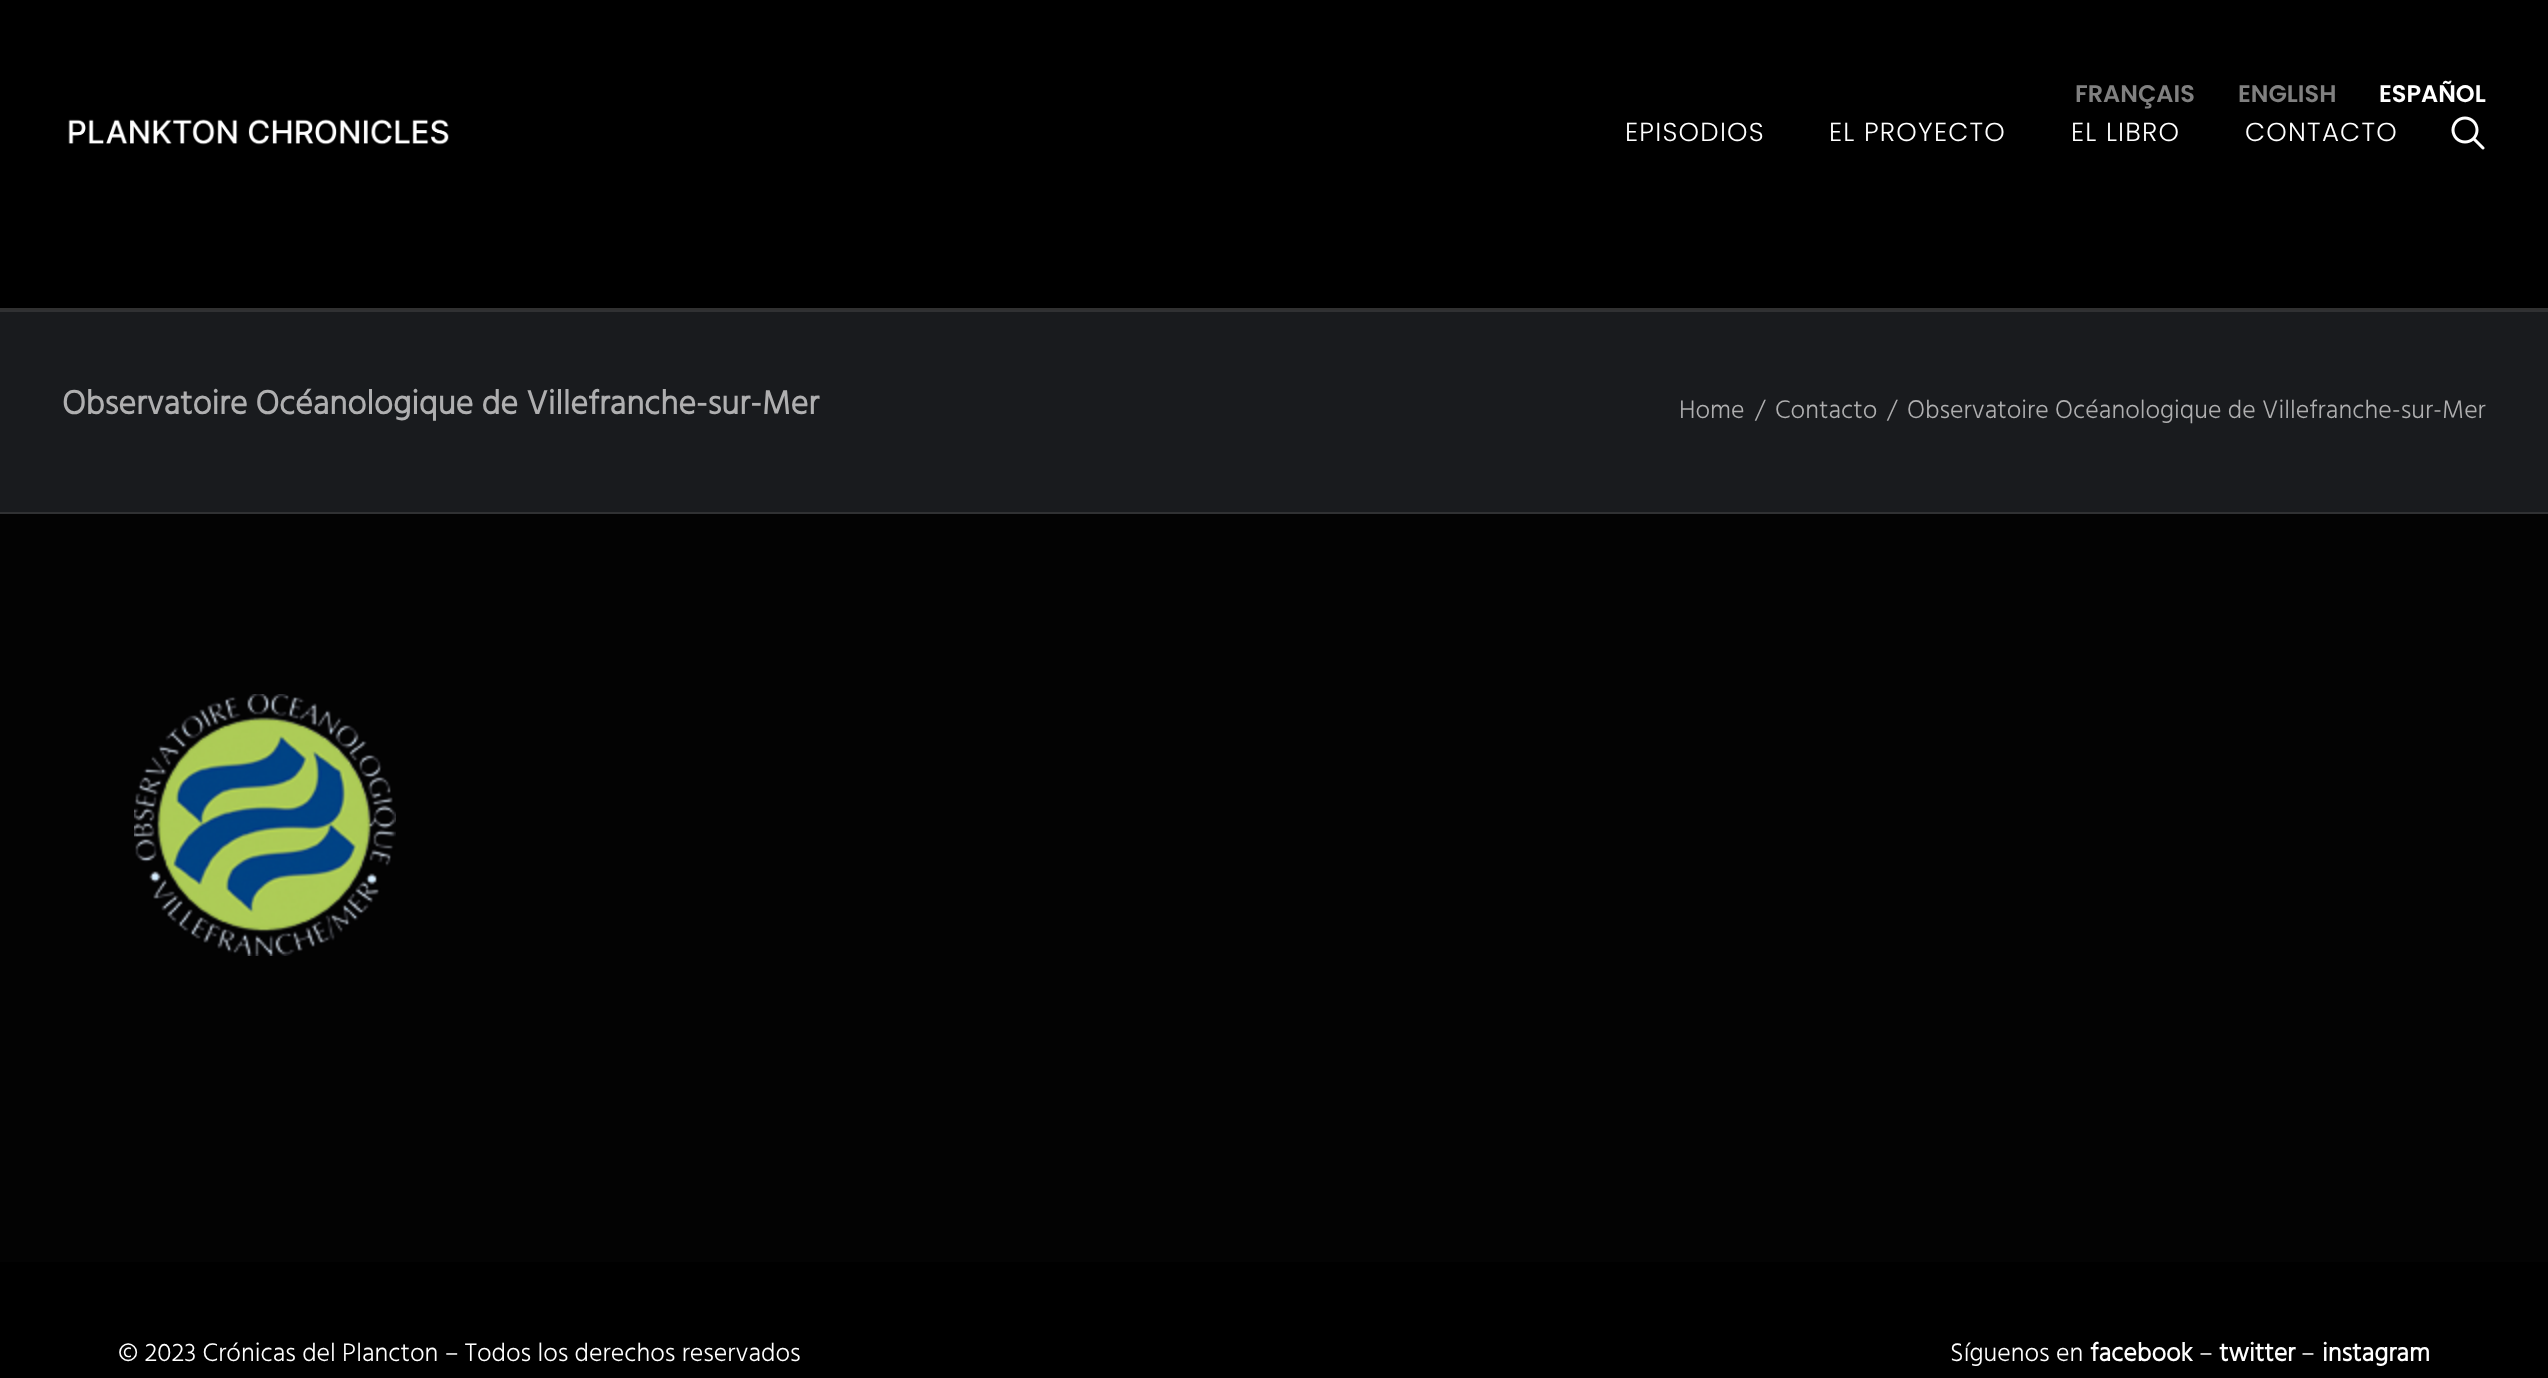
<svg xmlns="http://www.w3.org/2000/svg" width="2548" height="1378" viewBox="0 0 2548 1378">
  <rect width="100%" height="100%" fill="rgb(0,0,0)"/>
  <rect x="0" y="308" width="2548" height="2" fill="rgb(48,48,48)"/>
  <g font-family="Poppins" font-size="24" font-weight="600" fill="rgb(128,128,128)">
    <text x="2075" y="102">FRANÇAIS</text>
    <text x="2238" y="102">ENGLISH</text>
  </g>
  <text x="2379" y="102" font-family="Poppins" font-size="24" font-weight="600" fill="rgb(255,255,255)">ESPAÑOL</text>
  <image x="68" y="119" width="381" height="26" href="pic1.png"/>
  <g font-family="Poppins" font-size="26" font-weight="300" letter-spacing="1.25" fill="rgb(255,255,255)">
    <text x="1625" y="141">EPISODIOS</text>
    <text x="1829" y="141">EL PROYECTO</text>
    <text x="2071" y="141">EL LIBRO</text>
    <text x="2245" y="141">CONTACTO</text>
  </g>
  <image x="2451" y="116" width="34" height="34" href="pic2.png"/>
  <rect x="0" y="312" width="2548" height="200" fill="rgb(25,27,30)"/>
  <rect x="0" y="310" width="2548" height="2" fill="rgb(48,49,51)"/>
  <rect x="0" y="512" width="2548" height="2" fill="rgb(48,49,51)"/>
  <text x="62" y="414" font-family="Hind" font-size="34" font-weight="bold" fill="rgb(175,175,176)">Observatoire Océanologique de Villefranche-sur-Mer</text>
  <g font-family="Hind" font-size="26" font-weight="300" fill="rgb(175,175,176)">
    <text x="1679" y="418">Home</text>
    <text x="1755" y="418">/</text>
    <text x="1775" y="418">Contacto</text>
    <text x="1887" y="418">/</text>
    <text x="1907" y="418">Observatoire Océanologique de Villefranche-sur-Mer</text>
  </g>
  <rect x="0" y="514" width="2548" height="748" fill="rgb(3,3,3)"/>
  <image x="134" y="694" width="262" height="262" href="pic3.png"/>
  <g font-family="Hind" font-size="26" font-weight="300" fill="rgb(255,255,255)">
    <text x="118" y="1361">© 2023 Crónicas del Plancton – Todos los derechos reservados</text>
    <text x="1950" y="1361">Síguenos en</text>
  </g>
  <text x="2090" y="1361" font-family="Hind" font-size="26" font-weight="bold" fill="rgb(255,255,255)">facebook</text>
  <text x="2199" y="1361" font-family="Hind" font-size="26" font-weight="300" fill="rgb(255,255,255)">–</text>
  <text x="2219" y="1361" font-family="Hind" font-size="26" font-weight="bold" fill="rgb(255,255,255)">twitter</text>
  <text x="2301" y="1361" font-family="Hind" font-size="26" font-weight="300" fill="rgb(255,255,255)">–</text>
  <text x="2322" y="1361" font-family="Hind" font-size="26" font-weight="bold" fill="rgb(255,255,255)">instagram</text>
</svg>
